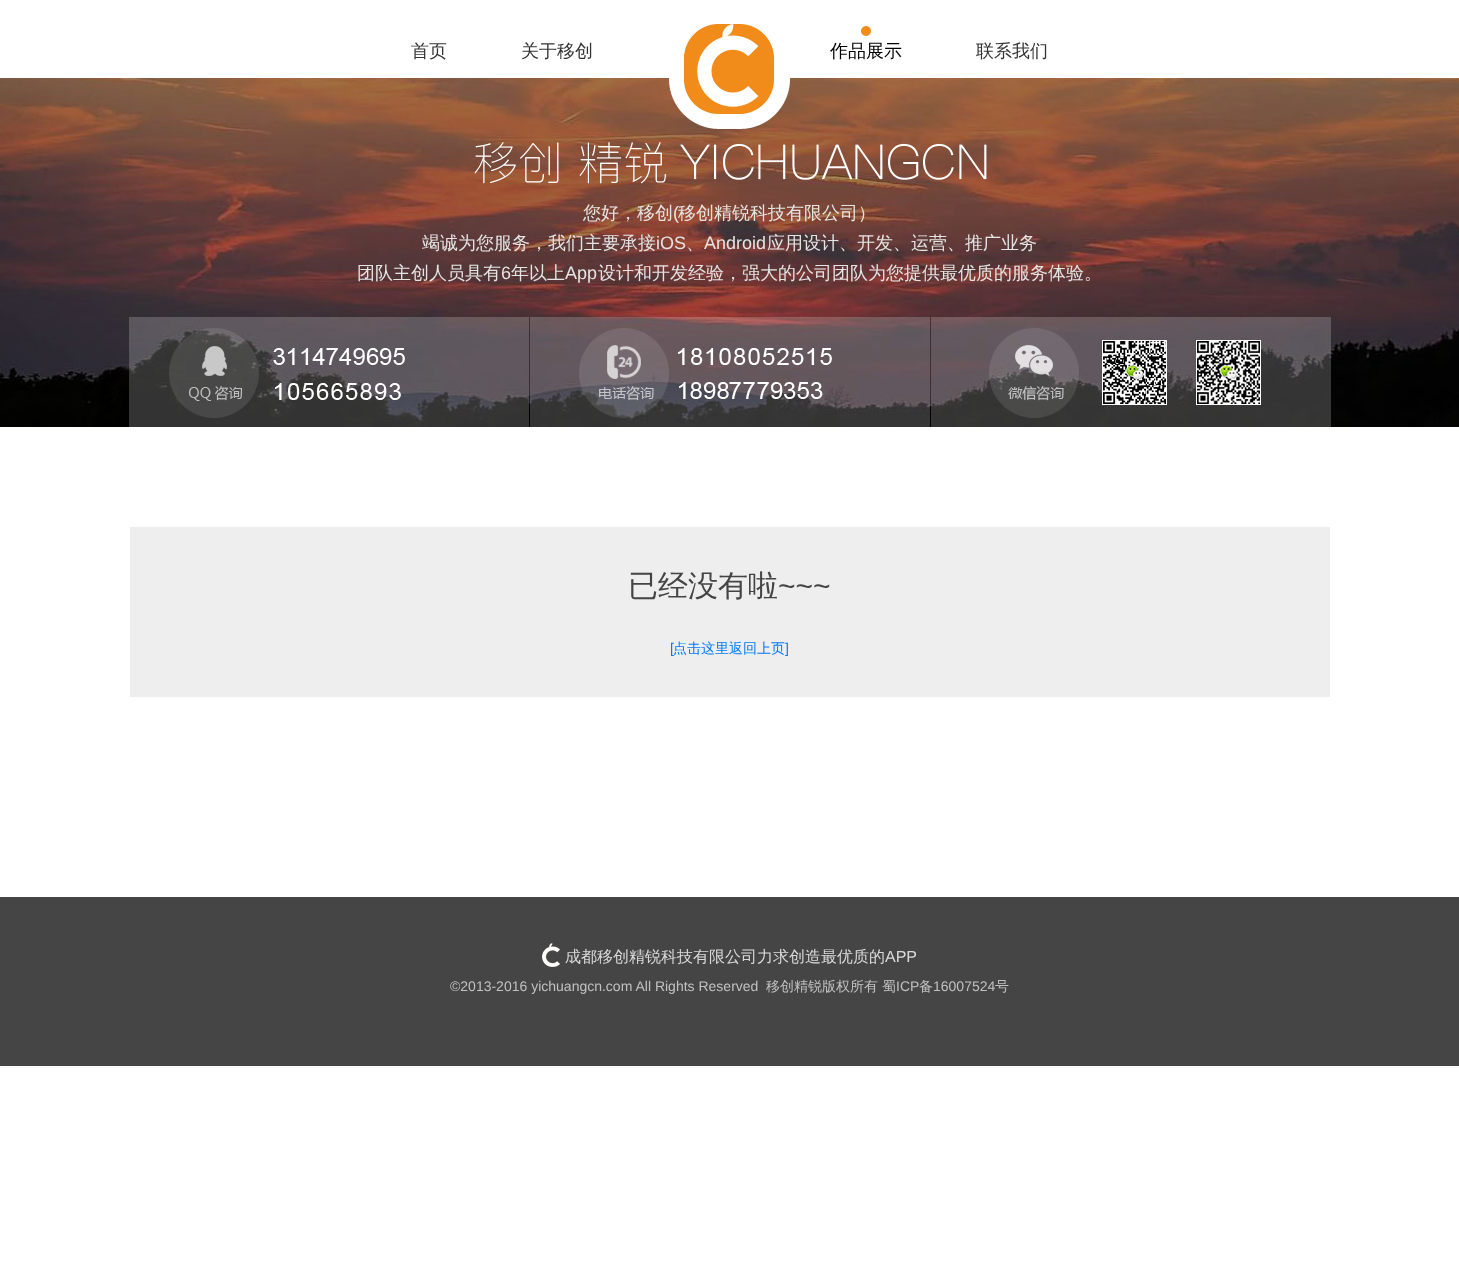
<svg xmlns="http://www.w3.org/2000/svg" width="1459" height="1288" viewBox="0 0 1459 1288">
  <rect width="100%" height="100%" fill="rgb(255,255,255)"/>
  <image x="0" y="78" width="1459" height="349" href="pic3.png"/>
  <image x="669" y="24" width="121" height="105" href="pic1.png"/>
  <g font-family="WenQuanYi Zen Hei" font-size="18" font-weight="500" fill="rgb(51,51,51)">
    <text x="411" y="57">首页</text>
    <text x="521" y="57">关于移创</text>
  </g>
  <image x="861" y="26" width="10" height="10" href="pic2.png"/>
  <text x="830" y="57" font-family="WenQuanYi Zen Hei" font-size="18" font-weight="500" fill="rgb(0,0,0)">作品展示</text>
  <text x="976" y="57" font-family="WenQuanYi Zen Hei" font-size="18" font-weight="500" fill="rgb(51,51,51)">联系我们</text>
  <image x="474" y="142" width="513" height="42" href="pic4.png"/>
  <text x="583" y="219" font-family="WenQuanYi Zen Hei" font-size="18" font-weight="500" fill="rgb(228,228,228)">您好，移创</text>
  <text x="673" y="219" font-family="Liberation Sans" font-size="18" fill="rgb(228,228,228)">(</text>
  <g font-family="WenQuanYi Zen Hei" font-size="18" font-weight="500" fill="rgb(228,228,228)">
    <text x="678" y="219">移创精锐科技有限公司）</text>
    <text x="422" y="249">竭诚为您服务，我们主要承接</text>
  </g>
  <text x="656" y="249" font-family="Liberation Sans" font-size="18" fill="rgb(228,228,228)">iOS</text>
  <text x="686" y="249" font-family="WenQuanYi Zen Hei" font-size="18" font-weight="500" fill="rgb(228,228,228)">、</text>
  <text x="704" y="249" font-family="Liberation Sans" font-size="18" fill="rgb(228,228,228)">Android</text>
  <g font-family="WenQuanYi Zen Hei" font-size="18" font-weight="500" fill="rgb(228,228,228)">
    <text x="767" y="249">应用设计、开发、运营、推广业务</text>
    <text x="357" y="279">团队主创人员具有</text>
  </g>
  <text x="501" y="279" font-family="Liberation Sans" font-size="18" fill="rgb(228,228,228)">6</text>
  <text x="511" y="279" font-family="WenQuanYi Zen Hei" font-size="18" font-weight="500" fill="rgb(228,228,228)">年以上</text>
  <text x="565" y="279" font-family="Liberation Sans" font-size="18" fill="rgb(228,228,228)">App</text>
  <text x="598" y="279" font-family="WenQuanYi Zen Hei" font-size="18" font-weight="500" fill="rgb(228,228,228)">设计和开发经验，强大的公司团队为您提供最优质的服务体验。</text>
  <image x="129" y="317" width="1202" height="110" href="pic5.png"/>
  <rect x="130" y="527" width="1200" height="170" fill="rgb(238,238,238)"/>
  <text x="628" y="596" font-family="WenQuanYi Zen Hei" font-size="30" font-weight="500" fill="rgb(68,68,68)">已经没有啦</text>
  <text x="778" y="596" font-family="Liberation Sans" font-size="30" fill="rgb(68,68,68)">~~~</text>
  <text x="670" y="653" font-family="Liberation Sans" font-size="14" fill="rgb(0,121,255)">[</text>
  <text x="673" y="653" font-family="WenQuanYi Zen Hei" font-size="14" font-weight="500" fill="rgb(0,121,255)">点击这里返回上页</text>
  <text x="785" y="653" font-family="Liberation Sans" font-size="14" fill="rgb(0,121,255)">]</text>
  <rect x="0" y="897" width="1459" height="169" fill="rgb(69,69,69)"/>
  <image x="542" y="943" width="18" height="24" href="pic6.png"/>
  <text x="565" y="962" font-family="WenQuanYi Zen Hei" font-size="16" font-weight="500" fill="rgb(219,218,218)">成都移创精锐科技有限公司力求创造最优质的</text>
  <text x="885" y="962" font-family="Liberation Sans" font-size="16" fill="rgb(219,218,218)">APP</text>
  <text x="450" y="991" font-family="Liberation Sans" font-size="14" fill="rgb(193,193,193)">©2013-2016 yichuangcn.com All Rights Reserved</text>
  <g font-family="WenQuanYi Zen Hei" font-size="14" font-weight="500" fill="rgb(193,193,193)">
    <text x="766" y="991">移创精锐版权所有</text>
    <text x="882" y="991">蜀</text>
  </g>
  <text x="896" y="991" font-family="Liberation Sans" font-size="14" fill="rgb(193,193,193)">ICP</text>
  <text x="919" y="991" font-family="WenQuanYi Zen Hei" font-size="14" font-weight="500" fill="rgb(193,193,193)">备</text>
  <text x="933" y="991" font-family="Liberation Sans" font-size="14" fill="rgb(193,193,193)">16007524</text>
  <text x="995" y="991" font-family="WenQuanYi Zen Hei" font-size="14" font-weight="500" fill="rgb(193,193,193)">号</text>
</svg>
